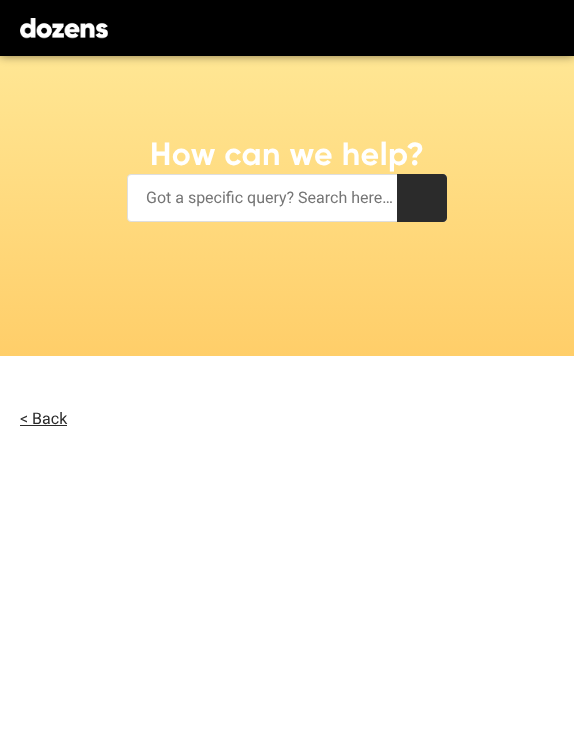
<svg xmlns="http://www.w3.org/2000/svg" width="574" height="739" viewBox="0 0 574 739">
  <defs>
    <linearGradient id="g1" gradientUnits="userSpaceOnUse" x1="287" y1="0" x2="287" y2="356"><stop offset="0" stop-color="rgb(255,235,156)"/><stop offset="1" stop-color="rgb(255,206,105)"/></linearGradient>
  </defs>
  <rect width="100%" height="100%" fill="rgb(255,255,255)"/>
  <rect x="0" y="56" width="574" height="300" fill="url(#g1)"/>
  <rect x="0" y="0" width="574" height="56" fill="rgba(0,0,0,0.5)" filter="blur(5px)"/>
  <rect x="0" y="0" width="574" height="56" fill="rgb(0,0,0)"/>
  <image x="20" y="18" width="88" height="21" href="pic1.png"/>
  <text x="150" y="165" font-family="Gilroy" font-size="32" font-weight="bold" letter-spacing="0.5" fill="rgb(255,255,255)">How can we help?</text>
  <rect x="127.5" y="174.5" width="319" height="47" rx="3.5" fill="rgb(255,255,255)" stroke="rgb(222,222,222)"/>
  <text x="146" y="203" font-family="Roboto" font-size="16" fill="rgb(117,117,117)">Got a specific query? Search here…</text>
  <path d="M397 174H443C445 174 447 176 447 178V218C447 220 445 222 443 222H397Z" fill="rgb(43,43,43)"/>
  <text x="20" y="424" font-family="Roboto" font-size="16" fill="rgb(43,43,43)">&lt; Back</text>
  <rect x="20" y="425" width="47" height="1" fill="rgb(43,43,43)"/>
</svg>
